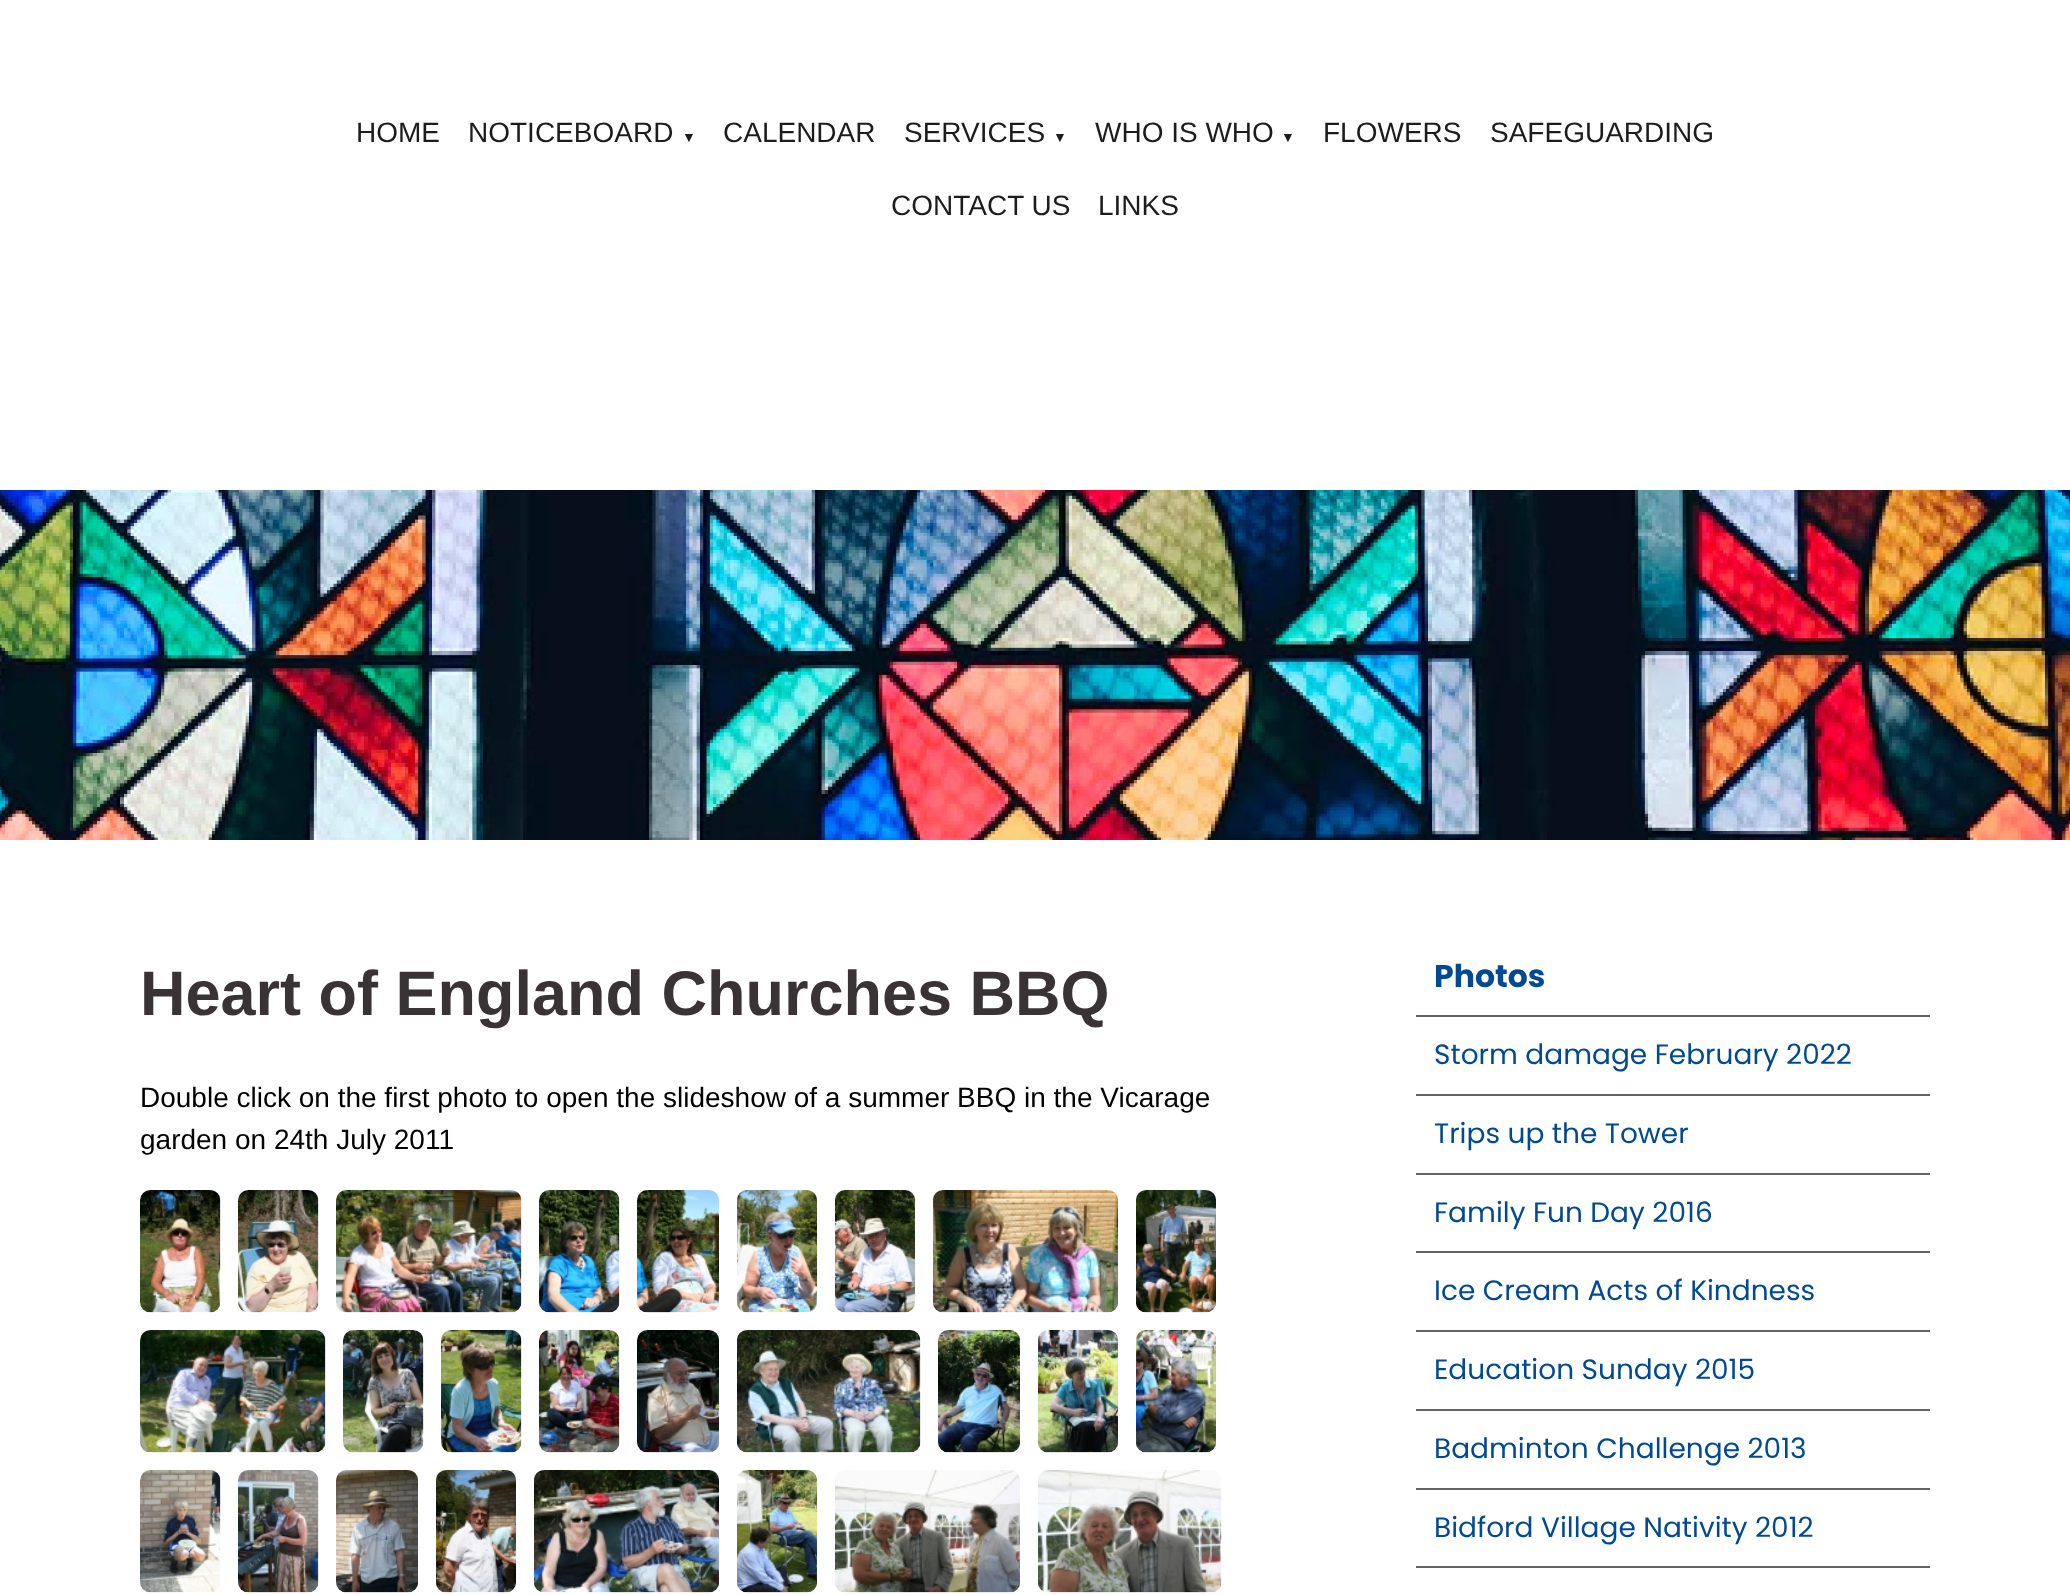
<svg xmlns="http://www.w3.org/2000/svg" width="2070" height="1595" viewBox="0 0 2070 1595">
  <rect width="100%" height="100%" fill="rgb(255,255,255)"/>
  <g font-family="Liberation Sans" font-size="28" fill="rgb(28,28,28)">
    <text x="356" y="142">HOME</text>
    <text x="468" y="142">NOTICEBOARD</text>
  </g>
  <text x="682" y="142" font-family="Liberation Serif" font-size="14" fill="rgb(28,28,28)">▼</text>
  <g font-family="Liberation Sans" font-size="28" fill="rgb(28,28,28)">
    <text x="723" y="142">CALENDAR</text>
    <text x="904" y="142">SERVICES</text>
  </g>
  <text x="1053" y="142" font-family="Liberation Serif" font-size="14" fill="rgb(28,28,28)">▼</text>
  <text x="1095" y="142" font-family="Liberation Sans" font-size="28" fill="rgb(28,28,28)">WHO IS WHO</text>
  <text x="1281" y="142" font-family="Liberation Serif" font-size="14" fill="rgb(28,28,28)">▼</text>
  <g font-family="Liberation Sans" font-size="28" fill="rgb(28,28,28)">
    <text x="1323" y="142">FLOWERS</text>
    <text x="1490" y="142">SAFEGUARDING</text>
    <text x="891" y="215">CONTACT US</text>
    <text x="1098" y="215">LINKS</text>
  </g>
  <image x="0" y="490" width="2070" height="350" href="pic1.png"/>
  <text x="140" y="1015" font-family="Liberation Sans" font-size="63" font-weight="bold" fill="rgb(58,51,53)">Heart of England Churches BBQ</text>
  <g font-family="Liberation Sans" font-size="28" fill="rgb(0,0,0)">
    <text>
      <tspan x="140" y="1107">Double click on the first photo to open the slideshow of a summer BBQ in the Vicarage</tspan>
      <tspan x="140" y="1149">garden on 24th July 2011</tspan>
    </text>
  </g>
  <image x="140" y="1190" width="81" height="123" href="pic2.png"/>
  <image x="238" y="1190" width="81" height="123" href="pic3.png"/>
  <image x="336" y="1190" width="186" height="123" href="pic4.png"/>
  <image x="539" y="1190" width="81" height="123" href="pic5.png"/>
  <image x="637" y="1190" width="82" height="123" href="pic6.png"/>
  <image x="737" y="1190" width="80" height="123" href="pic7.png"/>
  <image x="835" y="1190" width="80" height="123" href="pic8.png"/>
  <image x="933" y="1190" width="185" height="123" href="pic9.png"/>
  <image x="1136" y="1190" width="80" height="123" href="pic10.png"/>
  <image x="140" y="1330" width="186" height="123" href="pic11.png"/>
  <image x="343" y="1330" width="81" height="123" href="pic12.png"/>
  <image x="441" y="1330" width="81" height="123" href="pic13.png"/>
  <image x="539" y="1330" width="81" height="123" href="pic14.png"/>
  <image x="637" y="1330" width="82" height="123" href="pic15.png"/>
  <image x="737" y="1330" width="184" height="123" href="pic16.png"/>
  <image x="938" y="1330" width="82" height="123" href="pic17.png"/>
  <image x="1038" y="1330" width="80" height="123" href="pic18.png"/>
  <image x="1136" y="1330" width="80" height="123" href="pic19.png"/>
  <image x="140" y="1470" width="81" height="123" href="pic20.png"/>
  <image x="238" y="1470" width="81" height="123" href="pic21.png"/>
  <image x="336" y="1470" width="82" height="123" href="pic22.png"/>
  <image x="436" y="1470" width="80" height="123" href="pic23.png"/>
  <image x="534" y="1470" width="185" height="123" href="pic24.png"/>
  <image x="737" y="1470" width="80" height="123" href="pic25.png"/>
  <image x="835" y="1470" width="185" height="123" href="pic26.png"/>
  <image x="1038" y="1470" width="184" height="123" href="pic27.png"/>
  <rect x="1416" y="1015" width="514" height="2" fill="rgb(98,98,98)"/>
  <text x="1434" y="987" font-family="Poppins" font-size="31.5" font-weight="bold" fill="rgb(1,73,145)">Photos</text>
  <rect x="1416" y="1094" width="514" height="2" fill="rgb(98,98,98)"/>
  <text x="1434" y="1064" font-family="Poppins" font-size="28" fill="rgb(1,73,145)">Storm damage February 2022</text>
  <rect x="1416" y="1173" width="514" height="2" fill="rgb(98,98,98)"/>
  <text x="1434" y="1143" font-family="Poppins" font-size="28" fill="rgb(1,73,145)">Trips up the Tower</text>
  <rect x="1416" y="1251" width="514" height="2" fill="rgb(98,98,98)"/>
  <text x="1434" y="1222" font-family="Poppins" font-size="28" fill="rgb(1,73,145)">Family Fun Day 2016</text>
  <rect x="1416" y="1330" width="514" height="2" fill="rgb(98,98,98)"/>
  <text x="1434" y="1300" font-family="Poppins" font-size="28" fill="rgb(1,73,145)">Ice Cream Acts of Kindness</text>
  <rect x="1416" y="1409" width="514" height="2" fill="rgb(98,98,98)"/>
  <text x="1434" y="1379" font-family="Poppins" font-size="28" fill="rgb(1,73,145)">Education Sunday 2015</text>
  <rect x="1416" y="1488" width="514" height="2" fill="rgb(98,98,98)"/>
  <text x="1434" y="1458" font-family="Poppins" font-size="28" fill="rgb(1,73,145)">Badminton Challenge 2013</text>
  <rect x="1416" y="1566" width="514" height="2" fill="rgb(98,98,98)"/>
  <text x="1434" y="1537" font-family="Poppins" font-size="28" fill="rgb(1,73,145)">Bidford Village Nativity 2012</text>
</svg>
